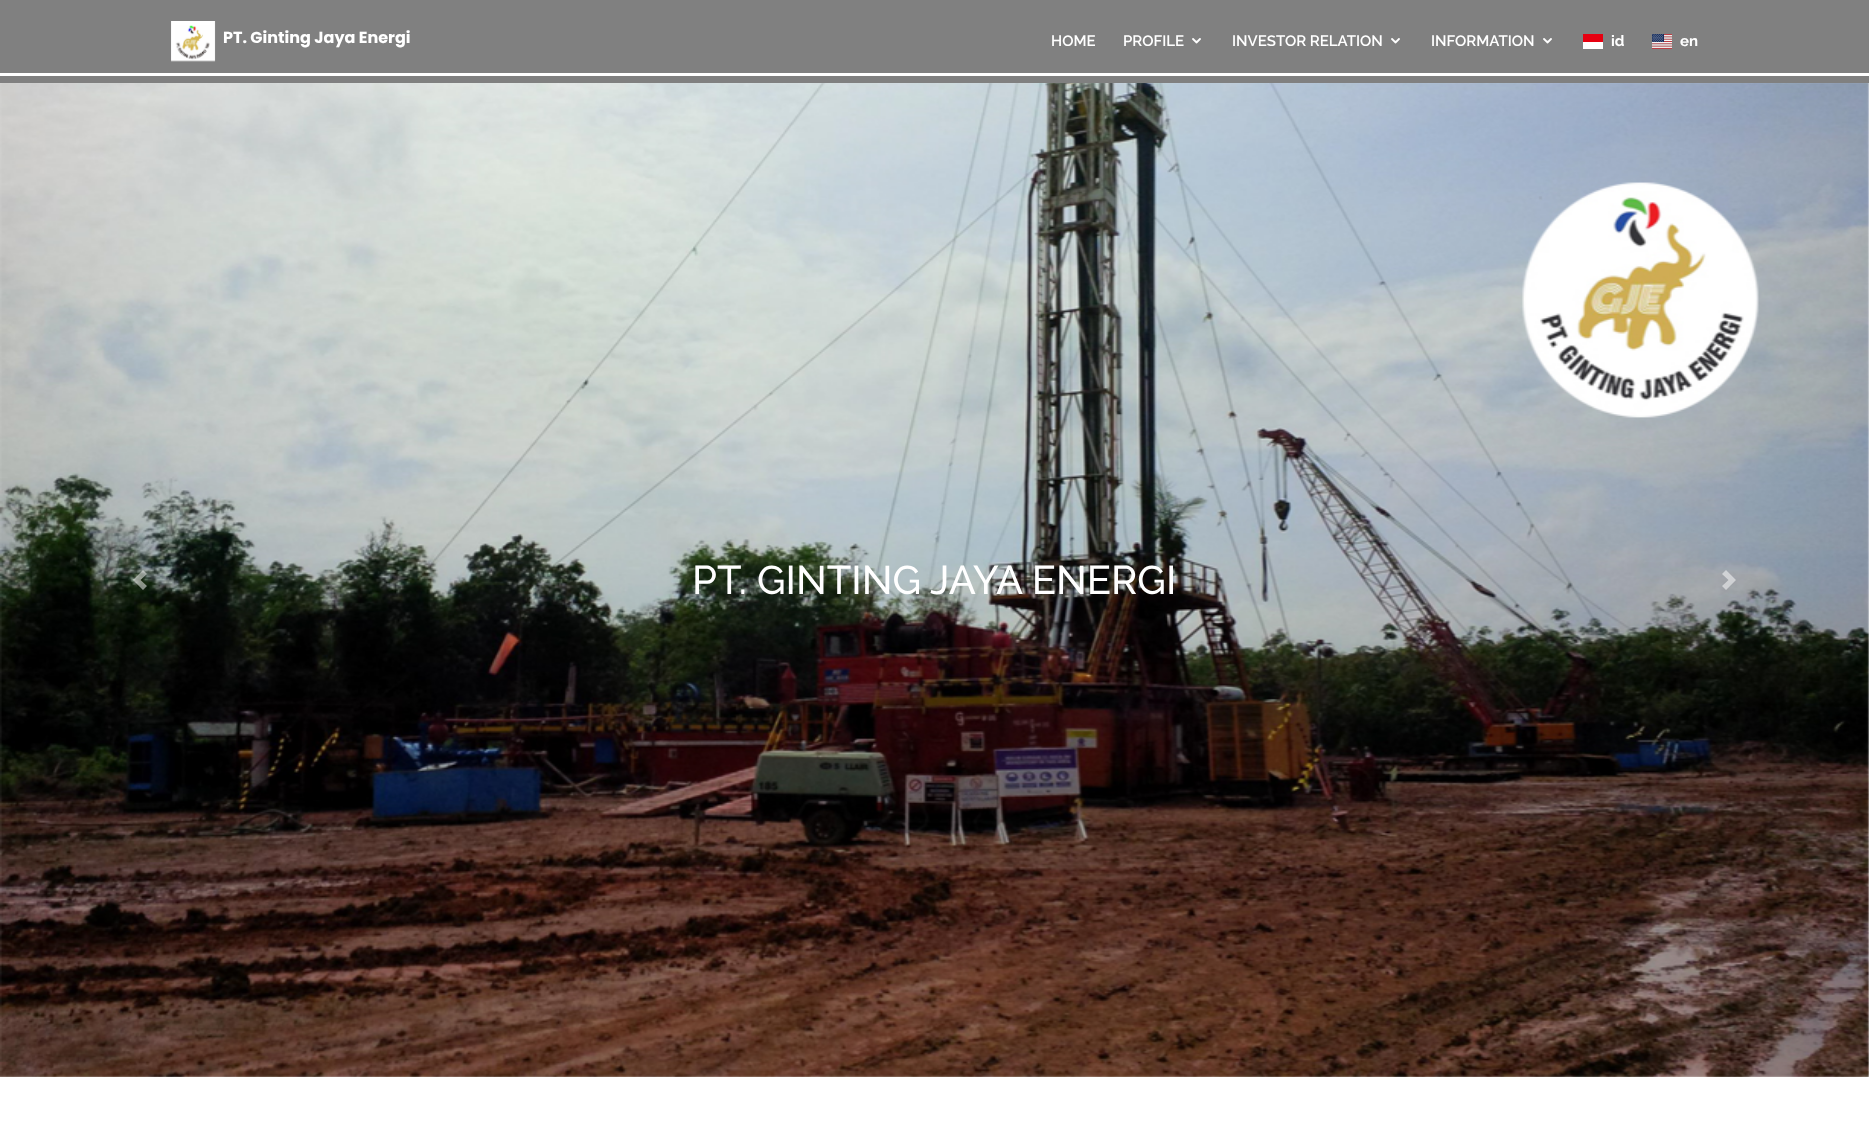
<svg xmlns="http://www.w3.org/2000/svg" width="1869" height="1132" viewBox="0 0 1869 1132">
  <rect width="100%" height="100%" fill="rgb(255,255,255)"/>
  <rect x="0" y="0" width="1869" height="83" fill="rgb(128,128,128)"/>
  <image x="171" y="21" width="45" height="41" href="pic1.png"/>
  <text x="223" y="43" font-family="Poppins" font-size="16" font-weight="bold" fill="rgb(255,255,255)">PT. Ginting Jaya Energi</text>
  <g font-family="Raleway" font-size="15" font-weight="600" fill="rgb(255,255,255)">
    <text x="1051" y="46">HOME</text>
    <text x="1123" y="46">PROFILE</text>
  </g>
  <image x="1192" y="38" width="9" height="6" href="pic2.png"/>
  <text x="1232" y="46" font-family="Raleway" font-size="15" font-weight="600" fill="rgb(255,255,255)">INVESTOR RELATION</text>
  <image x="1391" y="38" width="9" height="6" href="pic2.png"/>
  <text x="1431" y="46" font-family="Raleway" font-size="15" font-weight="600" fill="rgb(255,255,255)">INFORMATION</text>
  <image x="1543" y="38" width="9" height="6" href="pic2.png"/>
  <rect x="1583" y="34" width="20" height="8" fill="rgb(231,0,17)"/>
  <rect x="1583" y="42" width="20" height="7" fill="rgb(255,255,255)"/>
  <text x="1611" y="46" font-family="Raleway" font-size="15" font-weight="bold" fill="rgb(255,255,255)">id</text>
  <image x="1652" y="34" width="20" height="15" href="pic3.png"/>
  <text x="1680" y="46" font-family="Raleway" font-size="15" font-weight="bold" fill="rgb(255,255,255)">en</text>
  <rect x="0" y="73" width="1869" height="3" fill="rgb(255,255,255)"/>
  <image x="0" y="83" width="1869" height="994" href="pic4.png"/>
  <path d="M143 570L133 580L143 590L147 586L140.5 580L147 574Z" fill="rgba(255,255,255,0.5)"/>
  <text x="692" y="594" font-family="Raleway" font-size="40" font-weight="500" fill="rgb(255,255,255)">PT. GINTING JAYA ENERGI</text>
  <path d="M1726 570L1722 574L1728.5 580L1722 586L1726 590L1736 580Z" fill="rgba(255,255,255,0.5)"/>
</svg>
